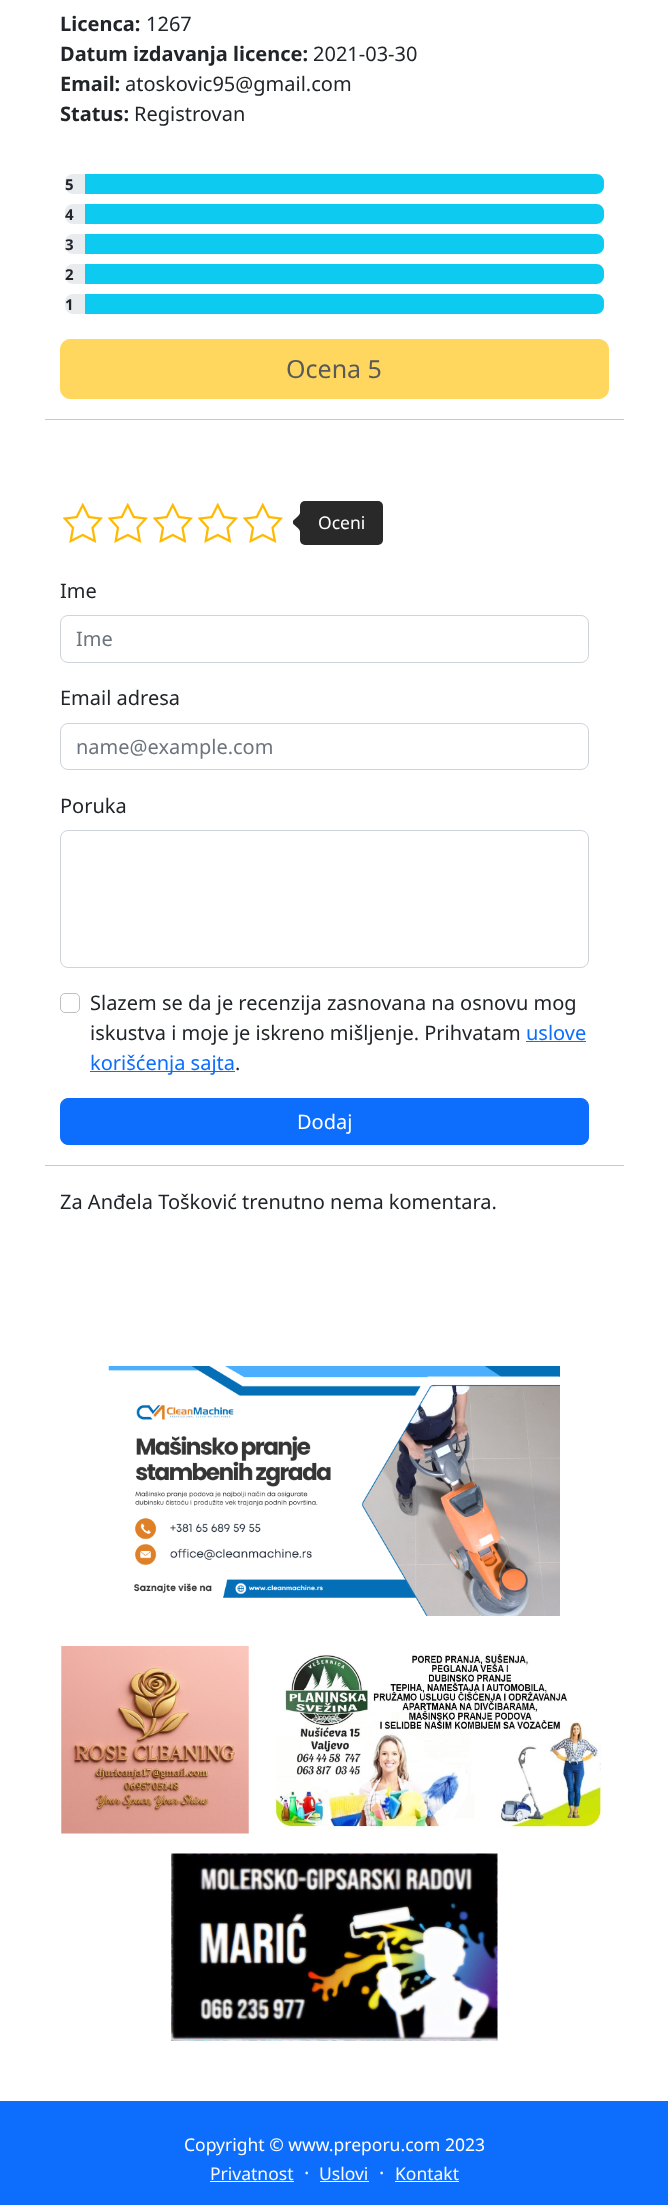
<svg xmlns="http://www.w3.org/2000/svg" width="668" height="2205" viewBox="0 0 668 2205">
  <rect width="100%" height="100%" fill="rgb(255,255,255)"/>
  <text x="60" y="31" font-family="Noto Sans" font-size="20" font-weight="bold" fill="rgb(33,37,41)">Licenca:</text>
  <text x="146" y="31" font-family="Noto Sans" font-size="20" fill="rgb(33,37,41)">1267</text>
  <text x="60" y="61" font-family="Noto Sans" font-size="20" font-weight="bold" fill="rgb(33,37,41)">Datum izdavanja licence:</text>
  <text x="313" y="61" font-family="Noto Sans" font-size="20" fill="rgb(33,37,41)">2021-03-30</text>
  <text x="60" y="91" font-family="Noto Sans" font-size="20" font-weight="bold" fill="rgb(33,37,41)">Email:</text>
  <text x="125" y="91" font-family="Noto Sans" font-size="20" fill="rgb(33,37,41)">atoskovic95@gmail.com</text>
  <text x="60" y="121" font-family="Noto Sans" font-size="20" font-weight="bold" fill="rgb(33,37,41)">Status:</text>
  <text x="134" y="121" font-family="Noto Sans" font-size="20" fill="rgb(33,37,41)">Registrovan</text>
  <rect x="65" y="174" width="539" height="20" rx="8" fill="rgb(233,236,239)"/>
  <text x="65" y="190" font-family="Noto Sans" font-size="15" font-weight="bold" fill="rgb(33,37,41)">5</text>
  <path d="M85 174H596C600.5 174 604 177.5 604 182V186C604 190.5 600.5 194 596 194H85Z" fill="rgb(13,202,240)"/>
  <rect x="65" y="204" width="539" height="20" rx="8" fill="rgb(233,236,239)"/>
  <text x="65" y="220" font-family="Noto Sans" font-size="15" font-weight="bold" fill="rgb(33,37,41)">4</text>
  <path d="M85 204H596C600.5 204 604 207.5 604 212V216C604 220.5 600.5 224 596 224H85Z" fill="rgb(13,202,240)"/>
  <rect x="65" y="234" width="539" height="20" rx="8" fill="rgb(233,236,239)"/>
  <text x="65" y="250" font-family="Noto Sans" font-size="15" font-weight="bold" fill="rgb(33,37,41)">3</text>
  <path d="M85 234H596C600.5 234 604 237.5 604 242V246C604 250.5 600.5 254 596 254H85Z" fill="rgb(13,202,240)"/>
  <rect x="65" y="264" width="539" height="20" rx="8" fill="rgb(233,236,239)"/>
  <text x="65" y="280" font-family="Noto Sans" font-size="15" font-weight="bold" fill="rgb(33,37,41)">2</text>
  <path d="M85 264H596C600.5 264 604 267.5 604 272V276C604 280.5 600.5 284 596 284H85Z" fill="rgb(13,202,240)"/>
  <rect x="65" y="294" width="539" height="20" rx="8" fill="rgb(233,236,239)"/>
  <text x="65" y="310" font-family="Noto Sans" font-size="15" font-weight="bold" fill="rgb(33,37,41)">1</text>
  <path d="M85 294H596C600.5 294 604 297.5 604 302V306C604 310.5 600.5 314 596 314H85Z" fill="rgb(13,202,240)"/>
  <rect x="60.5" y="339.5" width="548" height="59" rx="9.5" fill="rgb(255,215,94)" stroke="rgb(255,215,94)"/>
  <text x="286" y="378" font-family="Noto Sans" font-size="25" fill="rgb(89,89,89)">Ocena 5</text>
  <rect x="45" y="419" width="579" height="1" fill="rgb(200,201,202)"/>
  <image x="63" y="503" width="40" height="40" href="pic1.png"/>
  <image x="108" y="503" width="40" height="40" href="pic1.png"/>
  <image x="153" y="503" width="40" height="40" href="pic1.png"/>
  <image x="198" y="503" width="40" height="40" href="pic1.png"/>
  <image x="243" y="503" width="40" height="40" href="pic1.png"/>
  <image x="293" y="513" width="7" height="19" href="pic2.png"/>
  <rect x="300" y="501" width="83" height="44" rx="5" fill="rgb(41,41,41)"/>
  <text x="318" y="529" font-family="Noto Sans" font-size="17.5" fill="rgb(255,255,255)">Oceni</text>
  <text x="60" y="598" font-family="Noto Sans" font-size="20" fill="rgb(33,37,41)">Ime</text>
  <rect x="60.5" y="615.5" width="528" height="47" rx="7.5" fill="none" stroke="rgb(206,212,218)"/>
  <text x="76" y="646" font-family="Noto Sans" font-size="20" fill="rgb(108,117,125)">Ime</text>
  <text x="60" y="705" font-family="Noto Sans" font-size="20" fill="rgb(33,37,41)">Email adresa</text>
  <rect x="60.5" y="723.5" width="528" height="46" rx="7.5" fill="none" stroke="rgb(206,212,218)"/>
  <text x="76" y="754" font-family="Noto Sans" font-size="20" fill="rgb(108,117,125)">name@example.com</text>
  <text x="60" y="813" font-family="Noto Sans" font-size="20" fill="rgb(33,37,41)">Poruka</text>
  <rect x="60.5" y="830.5" width="528" height="137" rx="7.5" fill="none" stroke="rgb(206,212,218)"/>
  <rect x="60.5" y="993.5" width="19" height="19" rx="4.5" fill="none" stroke="rgb(191,191,191)"/>
  <g font-family="Noto Sans" font-size="20" fill="rgb(33,37,41)">
    <text>
      <tspan x="90" y="1010">Slazem se da je recenzija zasnovana na osnovu mog</tspan>
      <tspan x="90" y="1040">iskustva i moje je iskreno mišljenje. Prihvatam</tspan>
    </text>
  </g>
  <text x="526" y="1040" font-family="Noto Sans" font-size="20" fill="rgb(13,110,253)">uslove</text>
  <rect x="526" y="1041" width="60" height="1" fill="rgb(13,110,253)"/>
  <rect x="90" y="1071" width="145" height="1" fill="rgb(13,110,253)"/>
  <text x="90" y="1070" font-family="Noto Sans" font-size="20" fill="rgb(13,110,253)">korišćenja sajta</text>
  <text x="235" y="1070" font-family="Noto Sans" font-size="20" fill="rgb(33,37,41)">.</text>
  <rect x="60.5" y="1098.5" width="528" height="46" rx="7.5" fill="rgb(13,110,253)" stroke="rgb(13,110,253)"/>
  <text x="297" y="1129" font-family="Noto Sans" font-size="20" fill="rgb(255,255,255)">Dodaj</text>
  <rect x="45" y="1165" width="579" height="1" fill="rgb(200,201,202)"/>
  <text x="60" y="1209" font-family="Noto Sans" font-size="20" fill="rgb(33,37,41)">Za Anđela Tošković trenutno nema komentara.</text>
  <image x="108" y="1366" width="452" height="250" href="pic3.png"/>
  <image x="61" y="1646" width="188" height="188" href="pic4.png"/>
  <image x="274" y="1654" width="327" height="176" href="pic5.png"/>
  <image x="171" y="1853" width="327" height="188" href="pic6.png"/>
  <rect x="0" y="2101" width="668" height="104" fill="rgb(13,110,253)"/>
  <text x="184" y="2151" font-family="Noto Sans" font-size="17.5" fill="rgb(255,255,255)">Copyright © www.preporu.com 2023</text>
  <text x="210" y="2180" font-family="Noto Sans" font-size="17.5" fill="rgb(248,249,250)">Privatnost</text>
  <rect x="210" y="2181" width="84" height="1" fill="rgb(248,249,250)"/>
  <text x="304" y="2180" font-family="Noto Sans" font-size="20" fill="rgb(255,255,255)">·</text>
  <text x="319" y="2180" font-family="Noto Sans" font-size="17.5" fill="rgb(248,249,250)">Uslovi</text>
  <rect x="320" y="2181" width="49" height="1" fill="rgb(248,249,250)"/>
  <text x="379" y="2180" font-family="Noto Sans" font-size="20" fill="rgb(255,255,255)">·</text>
  <text x="395" y="2180" font-family="Noto Sans" font-size="17.5" fill="rgb(248,249,250)">Kontakt</text>
  <rect x="395" y="2181" width="64" height="1" fill="rgb(248,249,250)"/>
</svg>
